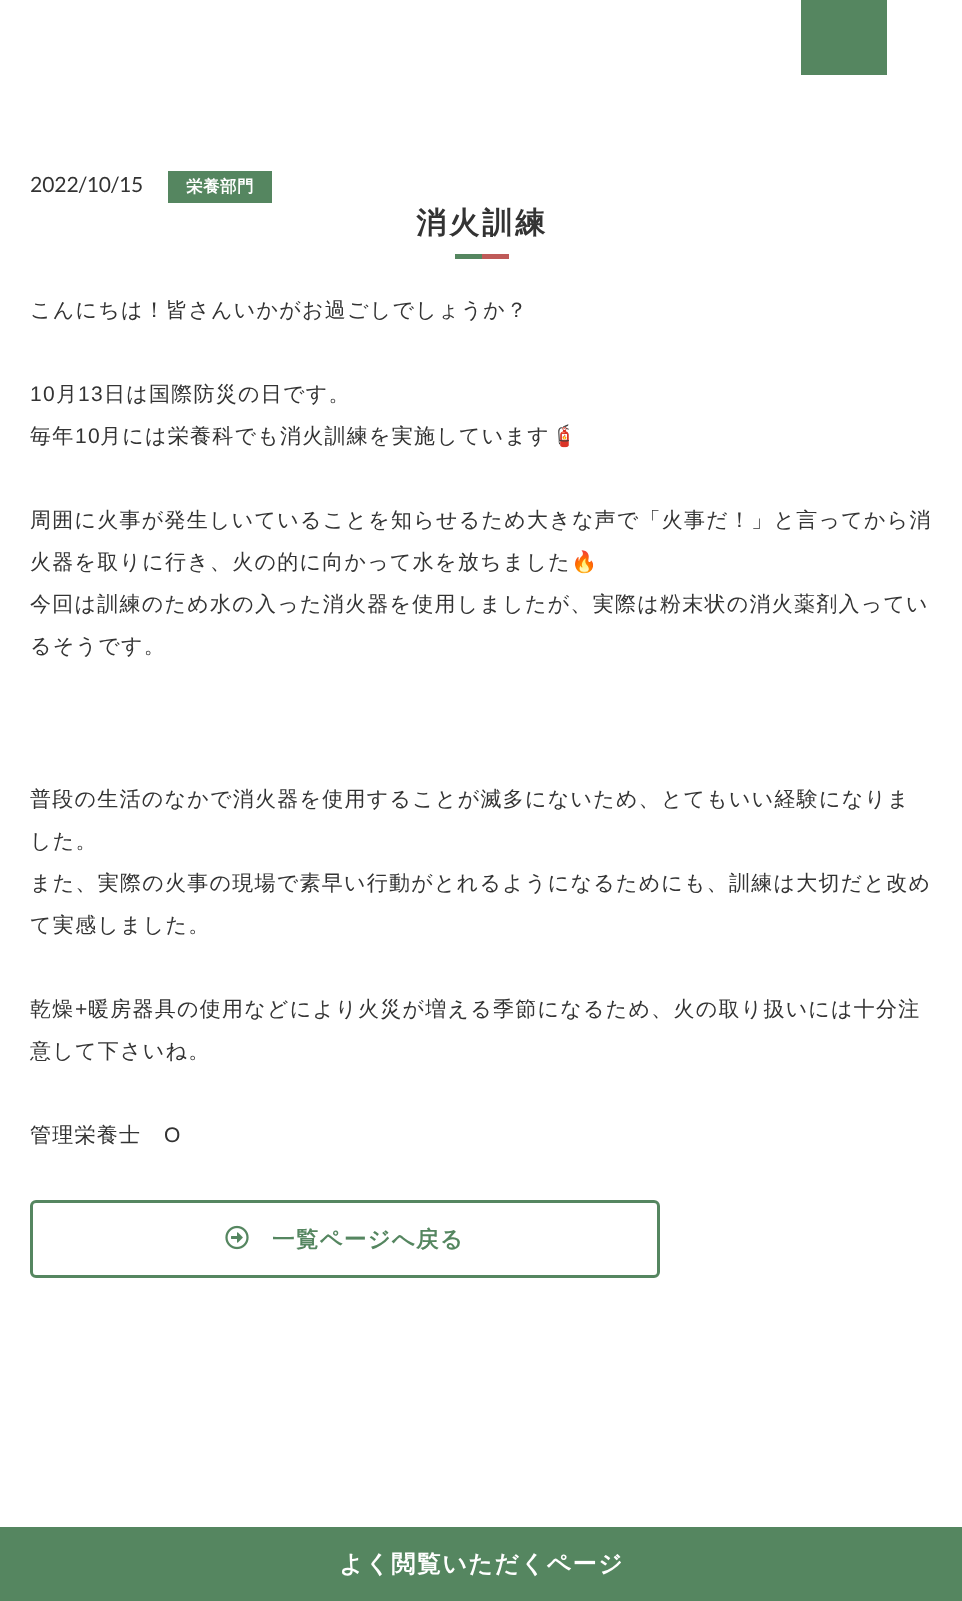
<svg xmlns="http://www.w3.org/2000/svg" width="962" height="1601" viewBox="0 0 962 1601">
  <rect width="100%" height="100%" fill="rgb(255,255,255)"/>
  <text x="30" y="192" font-family="Lato" font-size="21" fill="rgb(51,51,51)">2022/10/15</text>
  <rect x="168" y="171" width="104" height="32" fill="rgb(85,134,96)"/>
  <text x="186" y="192" font-family="WenQuanYi Zen Hei" font-size="16.5" font-weight="bold" letter-spacing="0.5" fill="rgb(255,255,255)">栄養部門</text>
  <text x="416" y="233" font-family="WenQuanYi Zen Hei" font-size="30" font-weight="bold" letter-spacing="3" fill="rgb(51,51,51)">消火訓練</text>
  <rect x="455" y="254" width="27" height="5" fill="rgb(85,134,96)"/>
  <rect x="482" y="254" width="27" height="5" fill="rgb(191,90,88)"/>
  <text x="30" y="317" font-family="WenQuanYi Zen Hei" font-size="21" font-weight="500" letter-spacing="1.25" fill="rgb(51,51,51)">こんにちは！皆さんいかがお過ごしでしょうか？</text>
  <text x="30" y="401" font-family="Liberation Sans" font-size="21" letter-spacing="1.25" fill="rgb(51,51,51)">10</text>
  <text x="56" y="401" font-family="WenQuanYi Zen Hei" font-size="21" font-weight="500" letter-spacing="1.25" fill="rgb(51,51,51)">月</text>
  <text x="78" y="401" font-family="Liberation Sans" font-size="21" letter-spacing="1.25" fill="rgb(51,51,51)">13</text>
  <g font-family="WenQuanYi Zen Hei" font-size="21" font-weight="500" letter-spacing="1.25" fill="rgb(51,51,51)">
    <text x="104" y="401">日は国際防災の日です。</text>
    <text x="30" y="443">毎年</text>
  </g>
  <text x="75" y="443" font-family="Liberation Sans" font-size="21" letter-spacing="1.25" fill="rgb(51,51,51)">10</text>
  <text x="100" y="443" font-family="WenQuanYi Zen Hei" font-size="21" font-weight="500" letter-spacing="1.25" fill="rgb(51,51,51)">月には栄養科でも消火訓練を実施しています</text>
  <text x="551" y="443" font-family="Noto Color Emoji" font-size="21" letter-spacing="1.25" fill="rgb(51,51,51)">🧯</text>
  <g font-family="WenQuanYi Zen Hei" font-size="21" font-weight="500" letter-spacing="1.25" fill="rgb(51,51,51)">
    <text x="30" y="527">周囲に火事が発生しいていることを知らせるため大きな声で「火事だ！」と言ってから消</text>
    <text x="30" y="569">火器を取りに行き、火の的に向かって水を放ちました</text>
  </g>
  <text x="571" y="569" font-family="Noto Color Emoji" font-size="21" letter-spacing="1.25" fill="rgb(51,51,51)">🔥</text>
  <g font-family="WenQuanYi Zen Hei" font-size="21" font-weight="500" letter-spacing="1.25" fill="rgb(51,51,51)">
    <text x="30" y="611">今回は訓練のため水の入った消火器を使用しましたが、実際は粉末状の消火薬剤入ってい</text>
    <text x="30" y="653">るそうです。</text>
    <text x="30" y="806">普段の生活のなかで消火器を使用することが滅多にないため、とてもいい経験になりま</text>
    <text x="30" y="848">した。</text>
    <text x="30" y="890">また、実際の火事の現場で素早い行動がとれるようになるためにも、訓練は大切だと改め</text>
    <text x="30" y="932">て実感しました。</text>
    <text x="30" y="1016">乾燥</text>
  </g>
  <text x="75" y="1016" font-family="Liberation Sans" font-size="21" letter-spacing="1.25" fill="rgb(51,51,51)">+</text>
  <g font-family="WenQuanYi Zen Hei" font-size="21" font-weight="500" letter-spacing="1.25" fill="rgb(51,51,51)">
    <text x="88" y="1016">暖房器具の使用などにより火災が増える季節になるため、火の取り扱いには十分注</text>
    <text x="30" y="1058">意して下さいね。</text>
    <text x="30" y="1142">管理栄養士</text>
  </g>
  <text x="164" y="1142" font-family="Liberation Sans" font-size="21" letter-spacing="1.25" fill="rgb(51,51,51)">O</text>
  <rect x="31.5" y="1201.5" width="627" height="75" rx="4.5" fill="none" stroke="rgb(85,134,96)" stroke-width="3"/>
  <image x="225" y="1225" width="24" height="25" href="pic1.png"/>
  <text x="272" y="1247" font-family="WenQuanYi Zen Hei" font-size="22.5" font-weight="bold" letter-spacing="1.25" fill="rgb(85,134,96)">一覧ページへ戻る</text>
  <rect x="801" y="0" width="86" height="75" fill="rgb(85,134,96)"/>
  <rect x="0" y="1527" width="962" height="74" fill="rgb(85,134,96)"/>
  <text x="339" y="1572" font-family="WenQuanYi Zen Hei" font-size="24" font-weight="bold" letter-spacing="1.5" fill="rgb(255,255,255)">よく閲覧いただくページ</text>
</svg>
